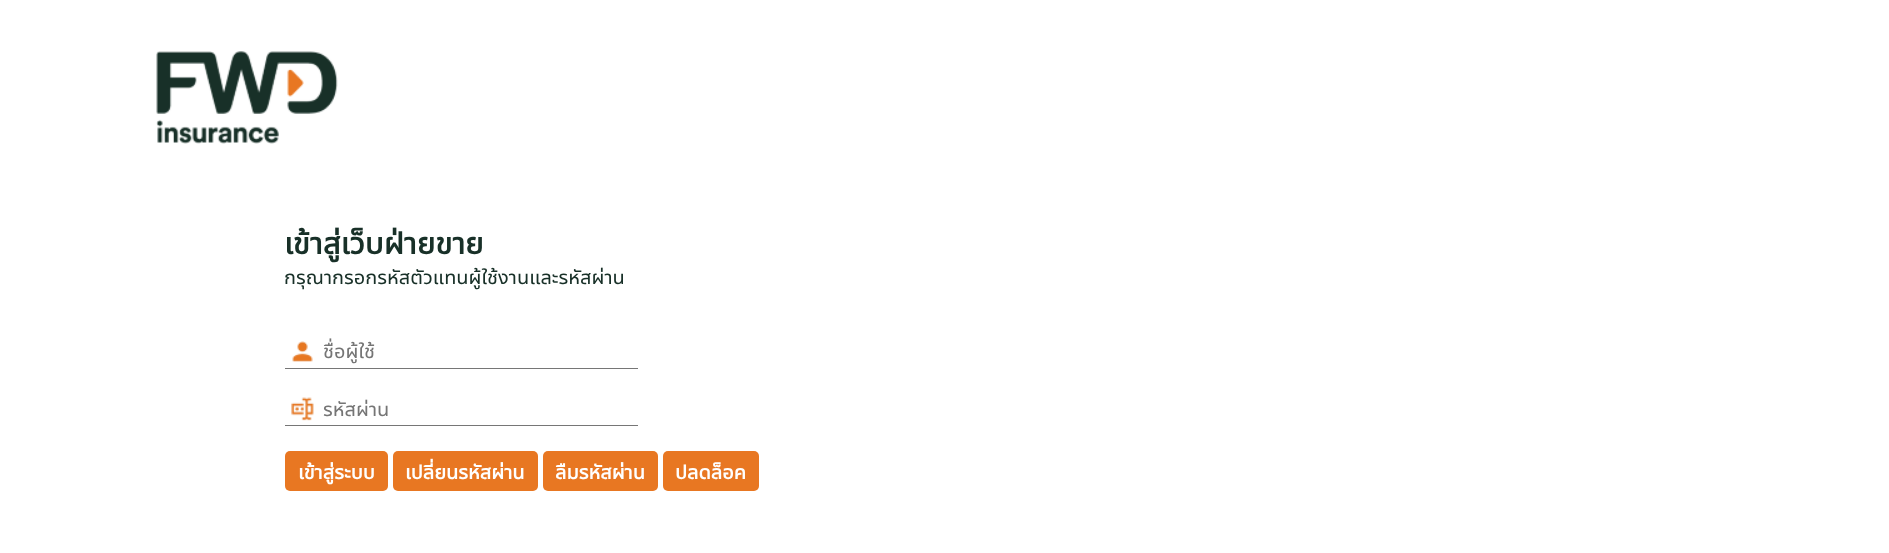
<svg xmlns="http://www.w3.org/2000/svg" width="1889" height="553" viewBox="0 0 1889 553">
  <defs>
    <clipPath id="clip1"><rect x="323" y="338" width="312" height="27"/></clipPath>
  </defs>
  <rect width="100%" height="100%" fill="rgb(255,255,255)"/>
  <image x="156" y="51" width="182" height="93" href="pic1.png"/>
  <text x="284" y="254" font-family="Noto Sans Thai UI" font-size="31.25" font-weight="bold" fill="rgb(24,48,40)">เข้าสู่เว็บฝ่ายขาย</text>
  <text x="284" y="284" font-family="Noto Sans Thai UI" font-size="20" fill="rgb(24,48,40)">กรุณากรอกรหัสตัวแทนผู้ใช้งานและรหัสผ่าน</text>
  <image x="292" y="341" width="21" height="21" href="pic2.png"/>
  <rect x="285" y="368" width="353" height="1" fill="rgb(118,118,118)"/>
  <g clip-path="url(#clip1)">
    <text x="323" y="358" font-family="Noto Sans Thai UI" font-size="20" fill="rgb(117,117,117)">ชื่อผู้ใช้</text>
  </g>
  <image x="291" y="397" width="23" height="24" href="pic3.png"/>
  <rect x="285" y="425" width="353" height="1" fill="rgb(118,118,118)"/>
  <text x="323" y="416" font-family="Noto Sans Thai UI" font-size="20" fill="rgb(117,117,117)">รหัสผ่าน</text>
  <rect x="285" y="451" width="103" height="40" rx="5" fill="rgb(232,119,34)"/>
  <text x="298" y="479" font-family="Noto Sans Thai UI" font-size="20" font-weight="bold" fill="rgb(255,255,255)">เข้าสู่ระบบ</text>
  <rect x="393" y="451" width="145" height="40" rx="5" fill="rgb(232,119,34)"/>
  <text x="405" y="479" font-family="Noto Sans Thai UI" font-size="20" font-weight="bold" fill="rgb(255,255,255)">เปลี่ยนรหัสผ่าน</text>
  <rect x="543" y="451" width="115" height="40" rx="5" fill="rgb(232,119,34)"/>
  <text x="555" y="479" font-family="Noto Sans Thai UI" font-size="20" font-weight="bold" fill="rgb(255,255,255)">ลืมรหัสผ่าน</text>
  <rect x="663" y="451" width="96" height="40" rx="5" fill="rgb(232,119,34)"/>
  <text x="675" y="479" font-family="Noto Sans Thai UI" font-size="20" font-weight="bold" fill="rgb(255,255,255)">ปลดล็อค</text>
</svg>
